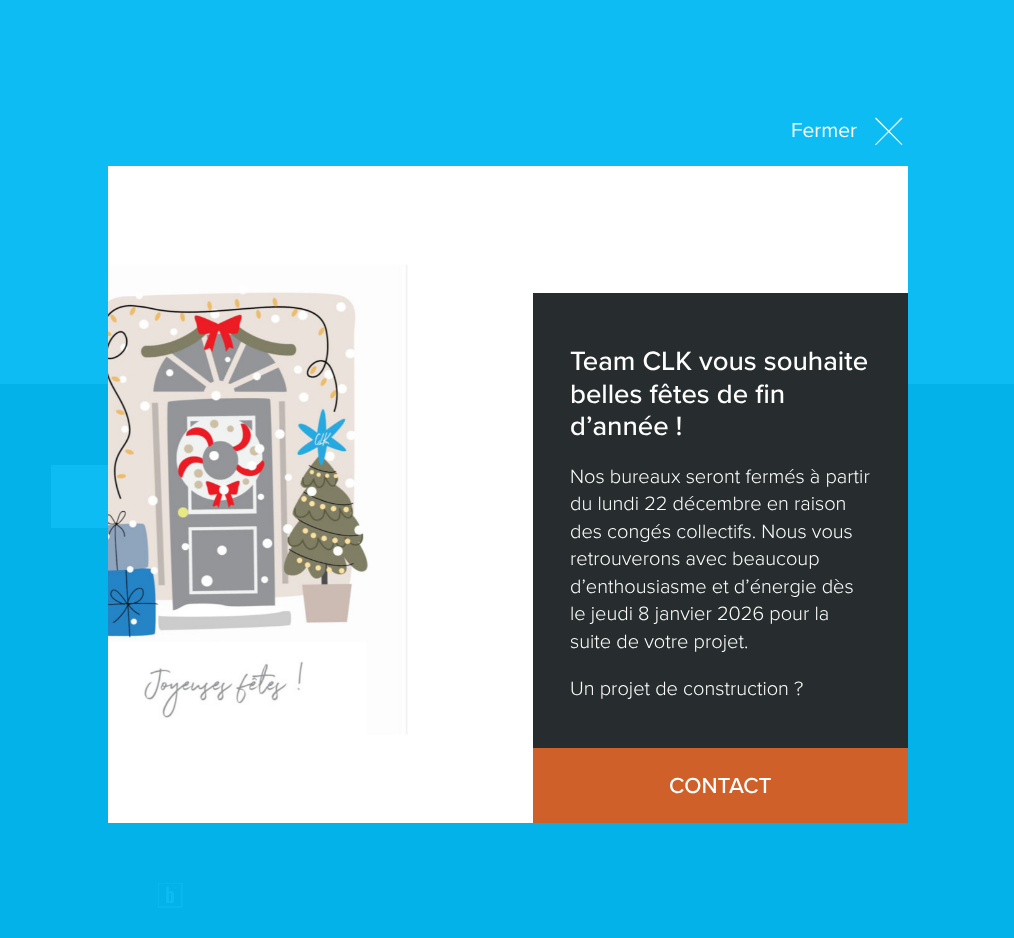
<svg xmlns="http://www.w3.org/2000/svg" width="1014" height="938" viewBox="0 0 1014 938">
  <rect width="100%" height="100%" fill="rgb(12,188,243)"/>
  <rect x="0" y="384" width="1014" height="554" fill="rgb(2,178,233)"/>
  <rect x="108" y="166" width="800" height="657" fill="rgb(255,255,255)"/>
  <image x="108" y="264" width="300" height="471" href="pic1.png"/>
  <text x="791" y="137" font-family="Proxima Nova" font-size="21" fill="rgb(255,255,255)">Fermer</text>
  <path d="M876 117.5L902.5 144.5L901.5 145L875 118.5Z" fill="rgb(255,255,255)"/>
  <path d="M875 144.5L901.5 117.5L902.5 118.5L876 145Z" fill="rgb(255,255,255)"/>
  <rect x="533" y="293" width="375" height="455" fill="rgb(39,45,46)"/>
  <g font-family="Proxima Nova" font-size="27.5" font-weight="500" fill="rgb(255,255,255)">
    <text>
      <tspan x="570" y="370">Team CLK vous souhaite</tspan>
      <tspan x="570" y="403">belles fêtes de fin</tspan>
      <tspan x="570" y="435">d’année !</tspan>
    </text>
  </g>
  <g font-family="Proxima Nova" font-size="20" font-weight="300" fill="rgb(255,255,255)">
    <text>
      <tspan x="570" y="483">Nos bureaux seront fermés à partir</tspan>
      <tspan x="570" y="510">du lundi 22 décembre en raison</tspan>
      <tspan x="570" y="538">des congés collectifs. Nous vous</tspan>
      <tspan x="570" y="565">retrouverons avec beaucoup</tspan>
      <tspan x="570" y="593">d’enthousiasme et d’énergie dès</tspan>
      <tspan x="570" y="620">le jeudi 8 janvier 2026 pour la</tspan>
      <tspan x="570" y="648">suite de votre projet.</tspan>
    </text>
    <text x="570" y="695">Un projet de construction ?</text>
  </g>
  <rect x="533" y="748" width="375" height="75" fill="rgb(207,96,42)"/>
  <text x="669" y="793" font-family="Proxima Nova" font-size="22.5" font-weight="500" fill="rgb(255,255,255)">CONTACT</text>
  <rect x="51" y="465" width="57" height="63" fill="rgb(12,188,243)"/>
  <image x="158" y="883" width="25" height="25" href="pic2.png"/>
</svg>
